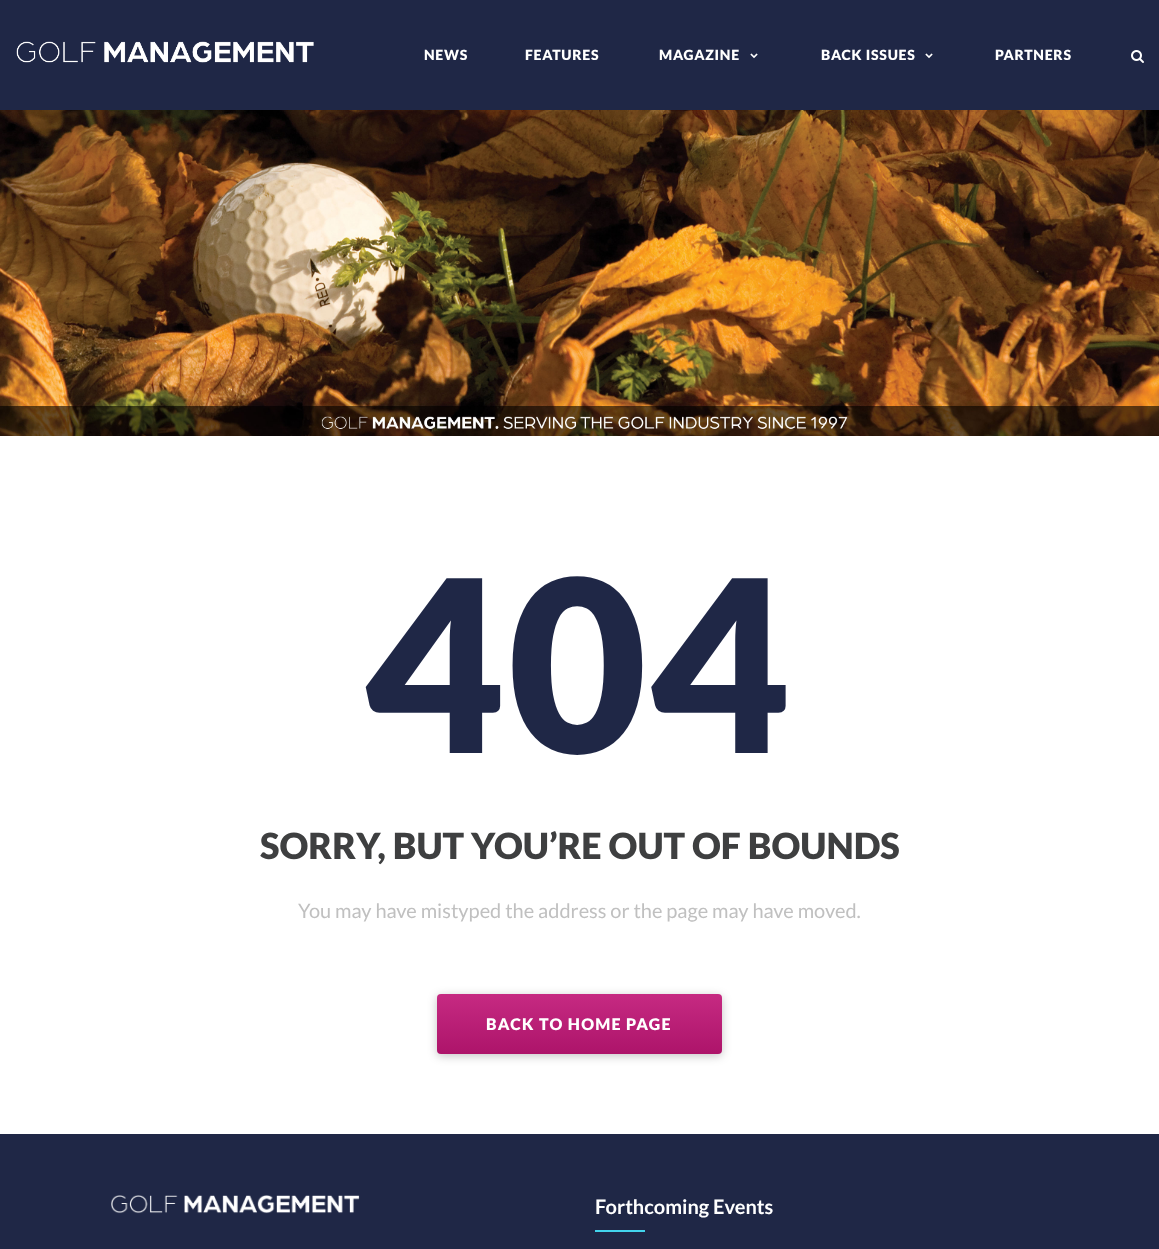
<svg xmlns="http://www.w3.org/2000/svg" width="1159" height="1249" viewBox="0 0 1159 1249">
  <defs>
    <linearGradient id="g1" gradientUnits="userSpaceOnUse" x1="580" y1="1054" x2="580" y2="994"><stop offset="0" stop-color="rgb(173,20,106)"/><stop offset="1" stop-color="rgb(198,42,130)"/></linearGradient>
  </defs>
  <rect width="100%" height="100%" fill="rgb(255,255,255)"/>
  <rect x="0" y="0" width="1159" height="110" fill="rgb(31,39,70)"/>
  <image x="16" y="41" width="298" height="22" href="pic1.png"/>
  <g font-family="Lato" font-size="14" font-weight="900" letter-spacing="0.75" fill="rgb(255,255,255)">
    <text x="424" y="60">NEWS</text>
    <text x="525" y="60">FEATURES</text>
    <text x="659" y="60">MAGAZINE</text>
  </g>
  <image x="750" y="53" width="8" height="6" href="pic2.png"/>
  <text x="821" y="60" font-family="Lato" font-size="14" font-weight="900" letter-spacing="0.75" fill="rgb(255,255,255)">BACK ISSUES</text>
  <image x="925" y="53" width="8" height="6" href="pic2.png"/>
  <text x="995" y="60" font-family="Lato" font-size="14" font-weight="900" letter-spacing="0.75" fill="rgb(255,255,255)">PARTNERS</text>
  <image x="1131" y="50" width="13" height="13" href="pic3.png"/>
  <image x="0" y="110" width="1159" height="326" href="pic4.png"/>
  <text x="365" y="753" font-family="Lato" font-size="240" font-weight="900" letter-spacing="3.5" fill="rgb(31,39,70)">404</text>
  <text x="260" y="859" font-family="Lato" font-size="36" font-weight="900" fill="rgb(62,63,64)">SORRY, BUT YOU’RE OUT OF BOUNDS</text>
  <text x="298" y="918" font-family="Lato" font-size="20" fill="rgb(192,192,192)">You may have mistyped the address or the page may have moved.</text>
  <rect x="437" y="996" width="285" height="60" rx="4" fill="rgba(0,0,0,0.23)" filter="blur(5px)"/>
  <rect x="437" y="994" width="285" height="60" rx="4" fill="url(#g1)"/>
  <text x="486" y="1030" font-family="Lato" font-size="16" font-weight="900" letter-spacing="1.25" fill="rgb(255,255,255)">BACK TO HOME PAGE</text>
  <rect x="0" y="1134" width="1159" height="115" fill="rgb(31,39,70)"/>
  <image x="111" y="1195" width="249" height="19" href="pic5.png"/>
  <text x="595" y="1214" font-family="Lato" font-size="20" font-weight="bold" fill="rgb(255,255,255)">Forthcoming Events</text>
  <rect x="595" y="1230" width="50" height="2" fill="rgb(66,212,236)"/>
</svg>
